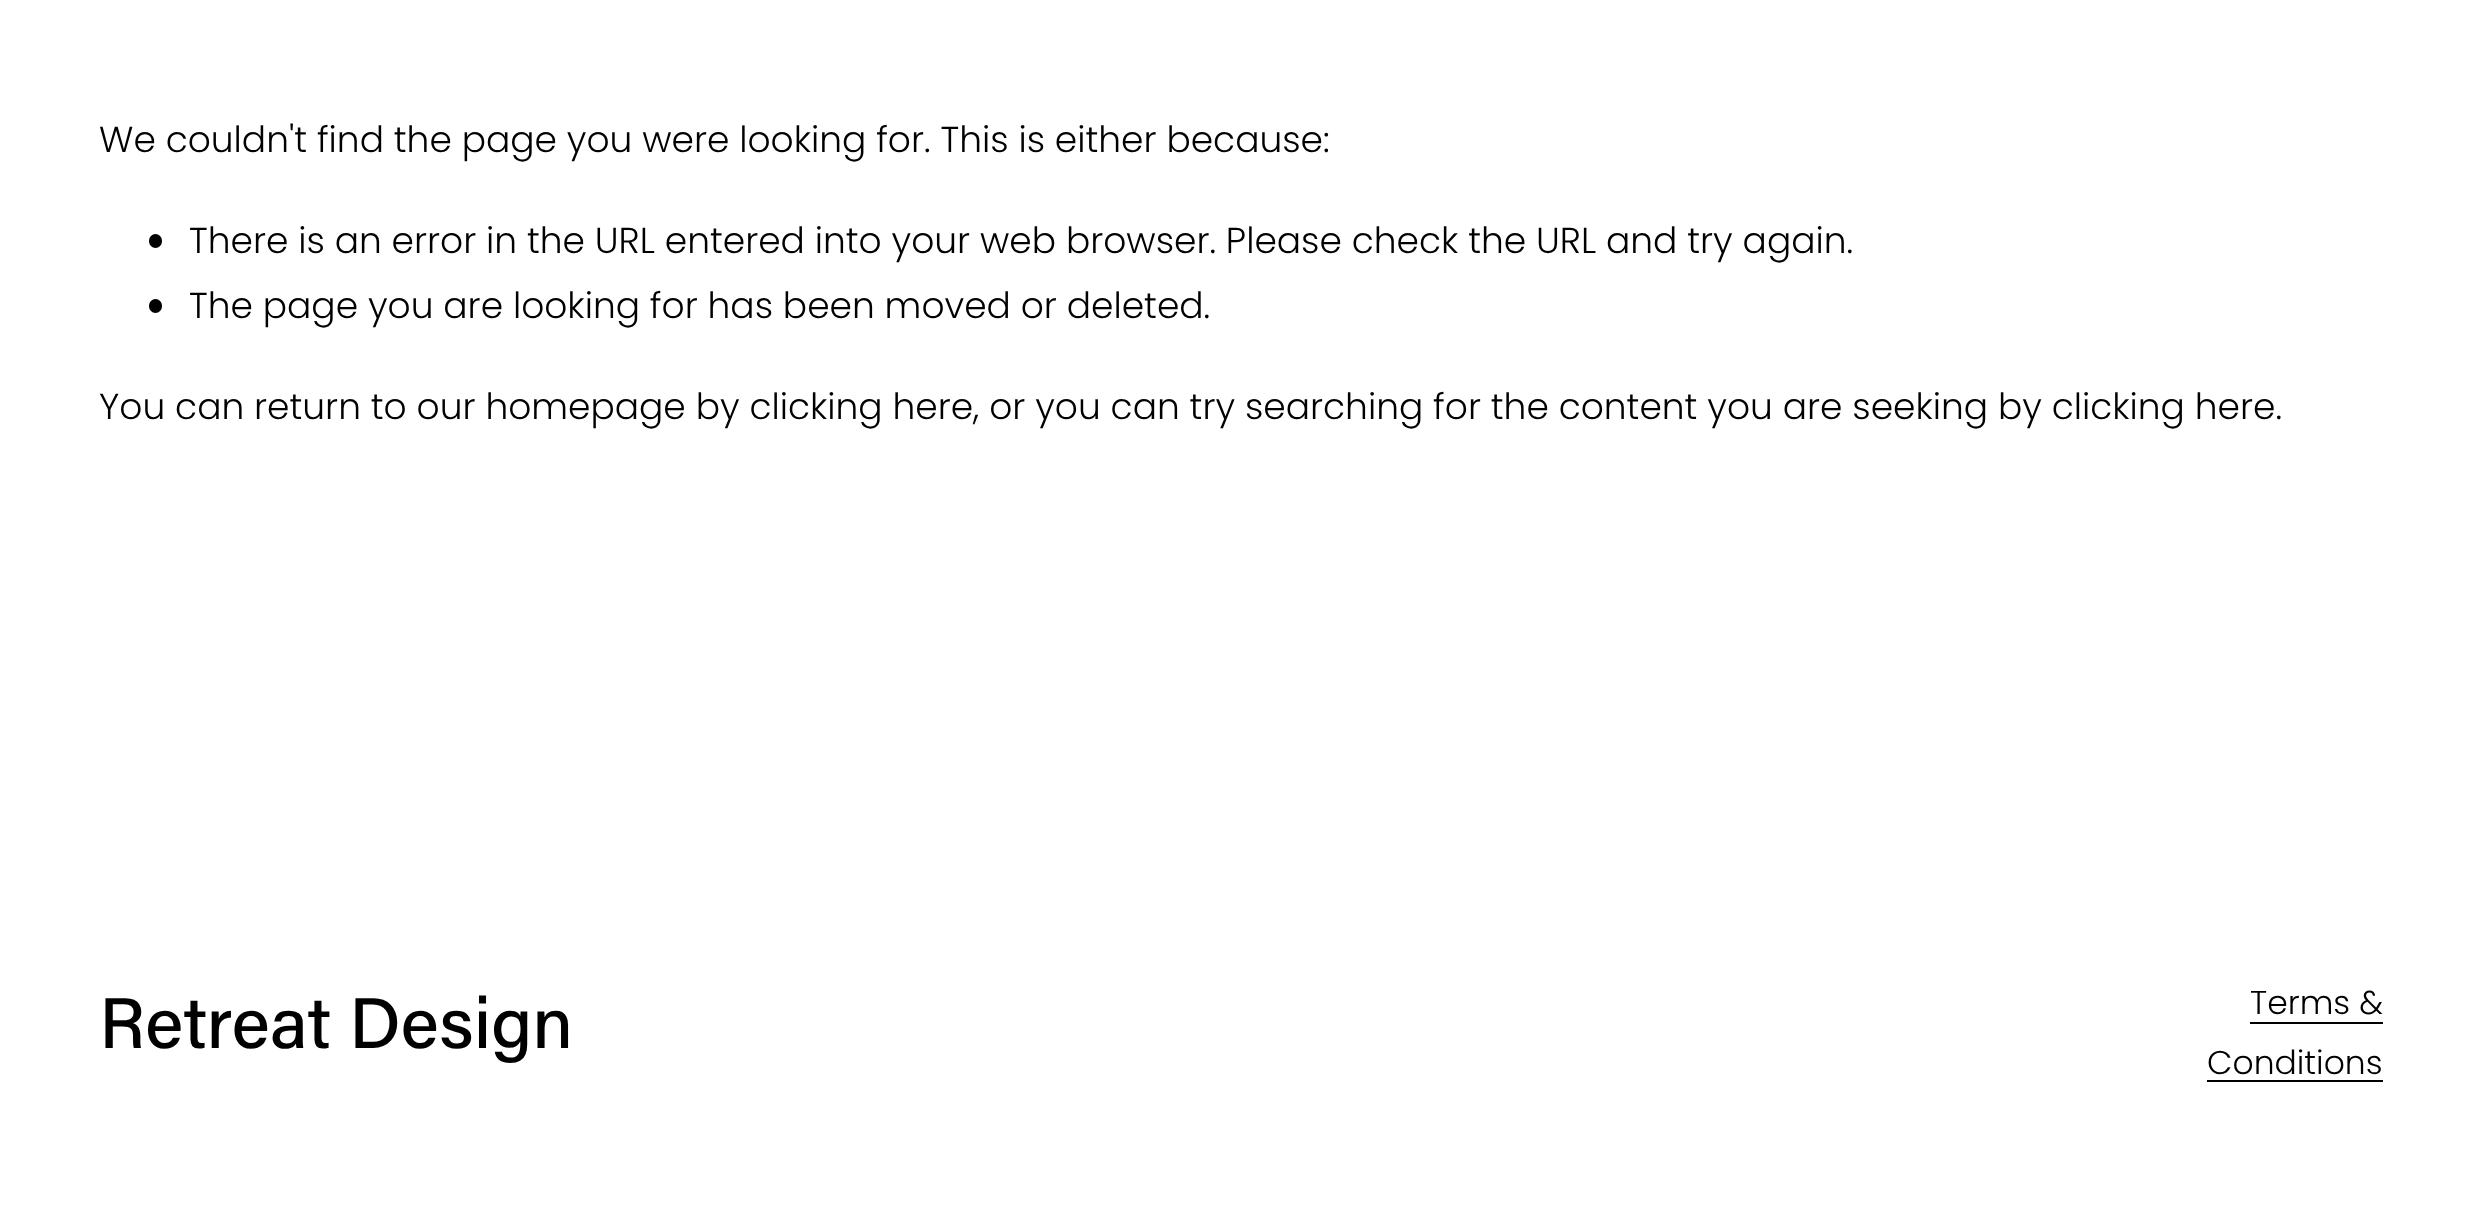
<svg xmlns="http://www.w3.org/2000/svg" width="2481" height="1223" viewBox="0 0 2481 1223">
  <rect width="100%" height="100%" fill="rgb(255,255,255)"/>
  <text x="99" y="152" font-family="Poppins" font-size="36" font-weight="300" fill="rgb(0,0,0)">We couldn't find the page you were looking for. This is either because:</text>
  <rect x="149" y="234" width="13" height="14" rx="6.5" fill="rgb(0,0,0)"/>
  <text x="189" y="253" font-family="Poppins" font-size="36" font-weight="300" fill="rgb(0,0,0)">There is an error in the URL entered into your web browser. Please check the URL and try again.</text>
  <rect x="149" y="299" width="13" height="14" rx="6.5" fill="rgb(0,0,0)"/>
  <g font-family="Poppins" font-size="36" font-weight="300" fill="rgb(0,0,0)">
    <text x="189" y="318">The page you are looking for has been moved or deleted.</text>
    <text x="99" y="419">You can return to our homepage by clicking here, or you can try searching for the content you are seeking by clicking here.</text>
  </g>
  <text x="99" y="1048" font-family="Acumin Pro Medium" font-size="71.75" font-weight="500" fill="rgb(0,0,0)">Retreat Design</text>
  <text x="2250" y="1014" font-family="Poppins" font-size="33" font-weight="300" fill="rgb(0,0,0)">Terms &amp;</text>
  <rect x="2250" y="1022" width="133" height="2" fill="rgb(0,0,0)"/>
  <text x="2207" y="1074" font-family="Poppins" font-size="33" font-weight="300" fill="rgb(0,0,0)">Conditions</text>
  <rect x="2207" y="1080" width="176" height="2" fill="rgb(0,0,0)"/>
</svg>
